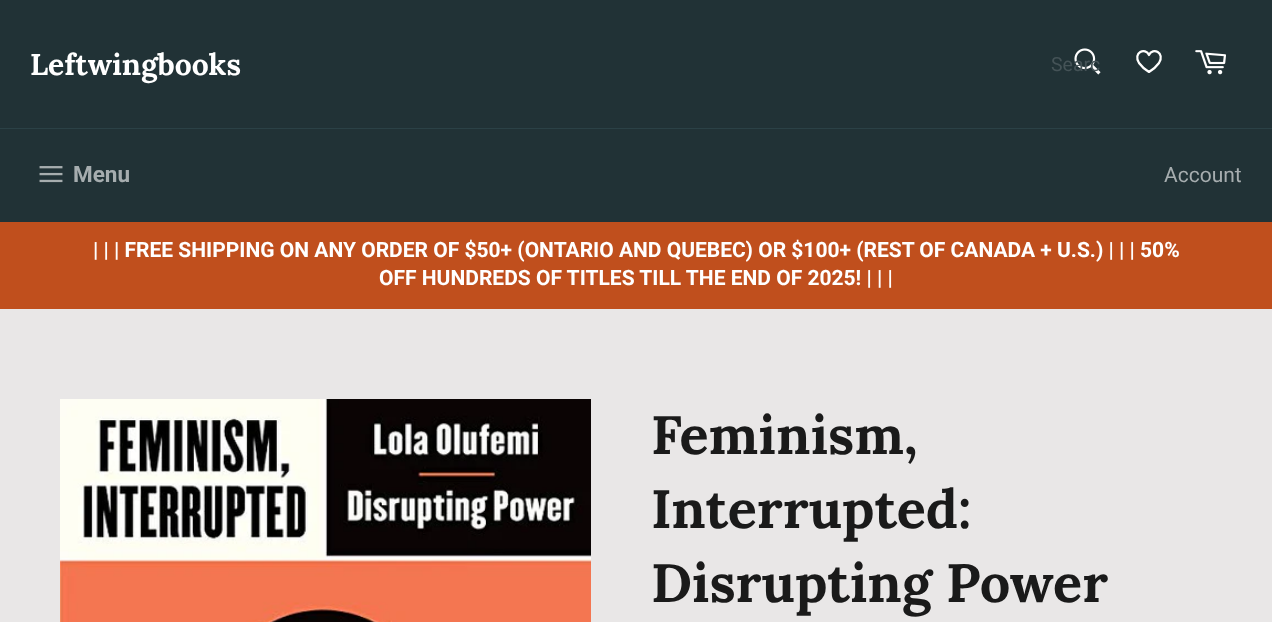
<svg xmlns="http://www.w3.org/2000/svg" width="1272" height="622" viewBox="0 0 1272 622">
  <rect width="100%" height="100%" fill="rgb(233,231,231)"/>
  <rect x="0" y="0" width="1272" height="128" fill="rgb(33,50,54)"/>
  <text x="30" y="75" font-family="Lora" font-size="30" font-weight="bold" fill="rgb(255,255,255)">Leftwingbooks</text>
  <image x="1074" y="48" width="27" height="27" href="pic1.png"/>
  <text x="1051" y="71" font-family="Roboto" font-size="19.5" fill="rgb(69,83,87)">Searc</text>
  <path d="M1149 72C1145 69.5 1141.5 66.5 1139 63C1132.5 52.5 1145.5 47 1149 55C1152.5 47 1165.5 52.5 1159 63C1156.5 66.5 1153 69.5 1149 72Z" fill="none" stroke="rgb(255,255,255)" stroke-width="2.2" stroke-linecap="round" stroke-linejoin="round"/>
  <image x="1195" y="50" width="31" height="25" href="pic2.png"/>
  <rect x="0" y="128" width="1272" height="1" fill="rgb(43,65,70)"/>
  <rect x="0" y="129" width="1272" height="93" fill="rgb(33,50,54)"/>
  <image x="39" y="166" width="24" height="17" href="pic3.png"/>
  <text x="73" y="182" font-family="Roboto" font-size="22.5" font-weight="bold" fill="rgb(166,173,175)">Menu</text>
  <text x="1164" y="182" font-family="Roboto" font-size="21" fill="rgb(166,173,175)">Account</text>
  <rect x="0" y="222" width="1272" height="87" fill="rgb(192,79,29)"/>
  <g font-family="Roboto" font-size="21" font-weight="bold" fill="rgb(255,255,255)">
    <text x="93" y="257">| | | FREE SHIPPING ON ANY ORDER OF $50+ (ONTARIO AND QUEBEC) OR $100+ (REST OF CANADA + U.S.) | | | 50%</text>
    <text x="379" y="285">OFF HUNDREDS OF TITLES TILL THE END OF 2025! | | |</text>
  </g>
  <image x="60" y="399" width="531" height="223" href="pic4.png"/>
  <g font-family="Lora" font-size="54" font-weight="bold" fill="rgb(26,26,26)">
    <text>
      <tspan x="651" y="454">Feminism,</tspan>
      <tspan x="651" y="528">Interrupted:</tspan>
      <tspan x="651" y="602">Disrupting Power</tspan>
    </text>
  </g>
</svg>
